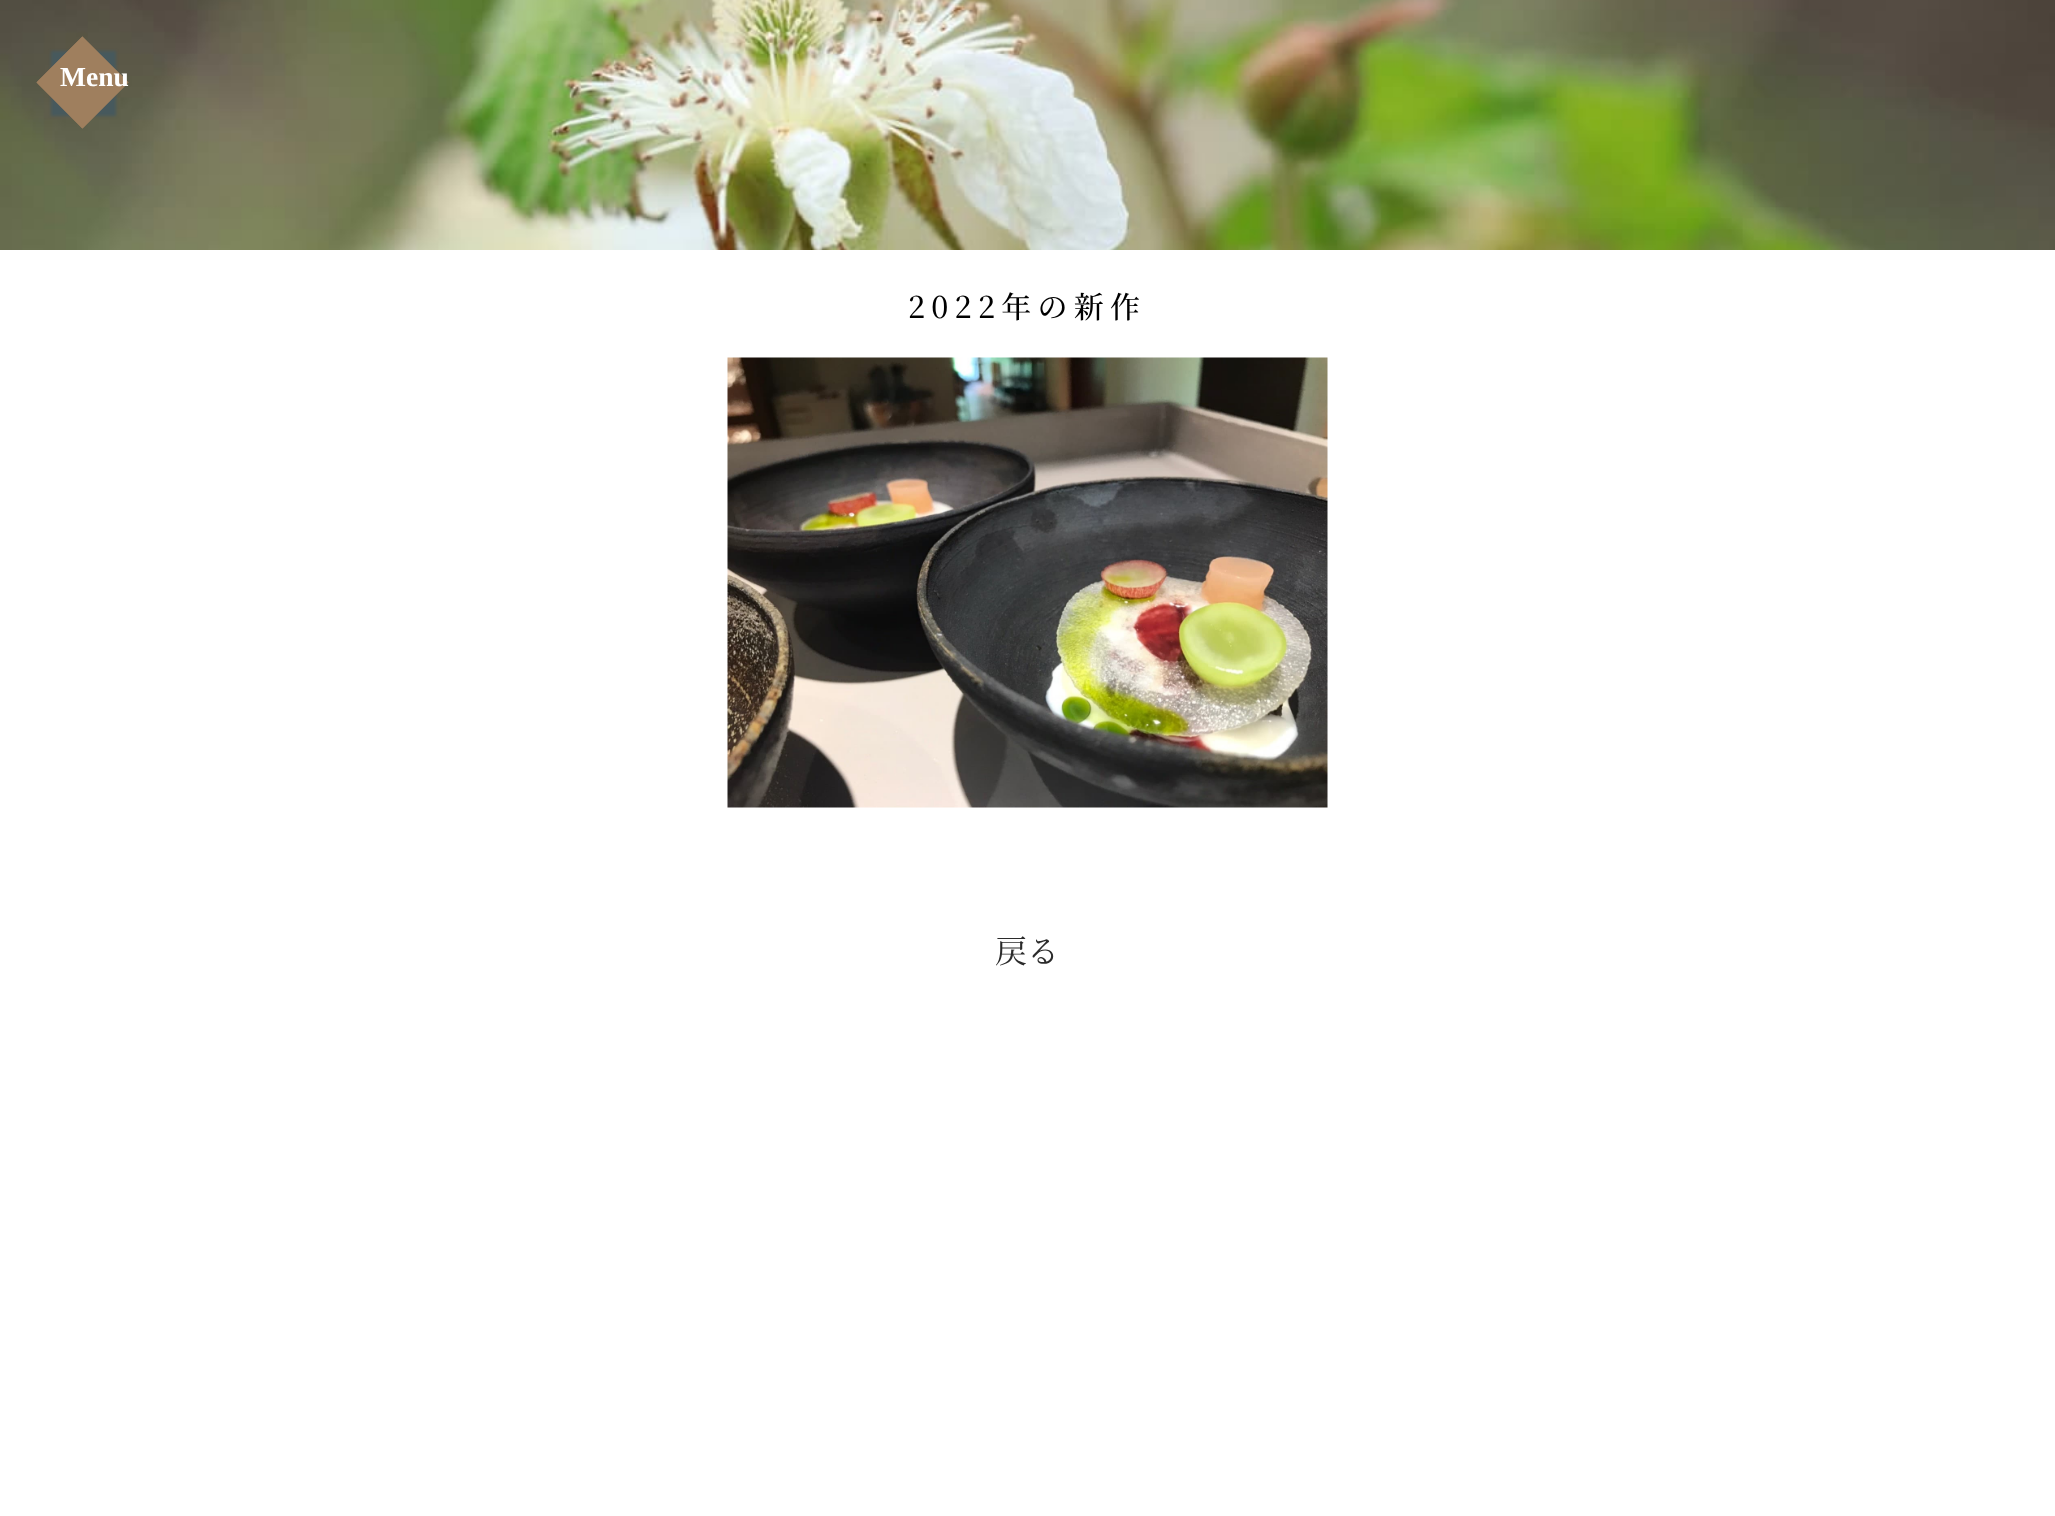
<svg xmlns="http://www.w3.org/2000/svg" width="2055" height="1516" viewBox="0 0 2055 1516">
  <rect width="100%" height="100%" fill="rgb(255,255,255)"/>
  <image x="0" y="0" width="2055" height="250" href="pic1.png"/>
  <rect x="51" y="51" width="65" height="65" fill="rgb(71,89,93)" filter="blur(1.5px)"/>
  <path d="M82 37L128 82L82 128L37 82Z" fill="rgb(159,127,94)"/>
  <path d="M82.5 39L126 82.5L82.5 126L39 82.5Z" fill="none" stroke="rgb(159,127,94)" stroke-width="3.8"/>
  <text x="60" y="86" font-family="Liberation Serif" font-size="27.5" font-weight="bold" fill="rgb(255,255,255)">Menu</text>
  <text x="908" y="318" font-family="Noto Serif JP" font-size="30" font-weight="500" letter-spacing="6.25" fill="rgb(0,0,0)">2022年の新作</text>
  <image x="727" y="357" width="601" height="451" href="pic2.png"/>
  <text x="995" y="963" font-family="Noto Serif JP" font-size="32" fill="rgb(43,43,43)">戻る</text>
</svg>
